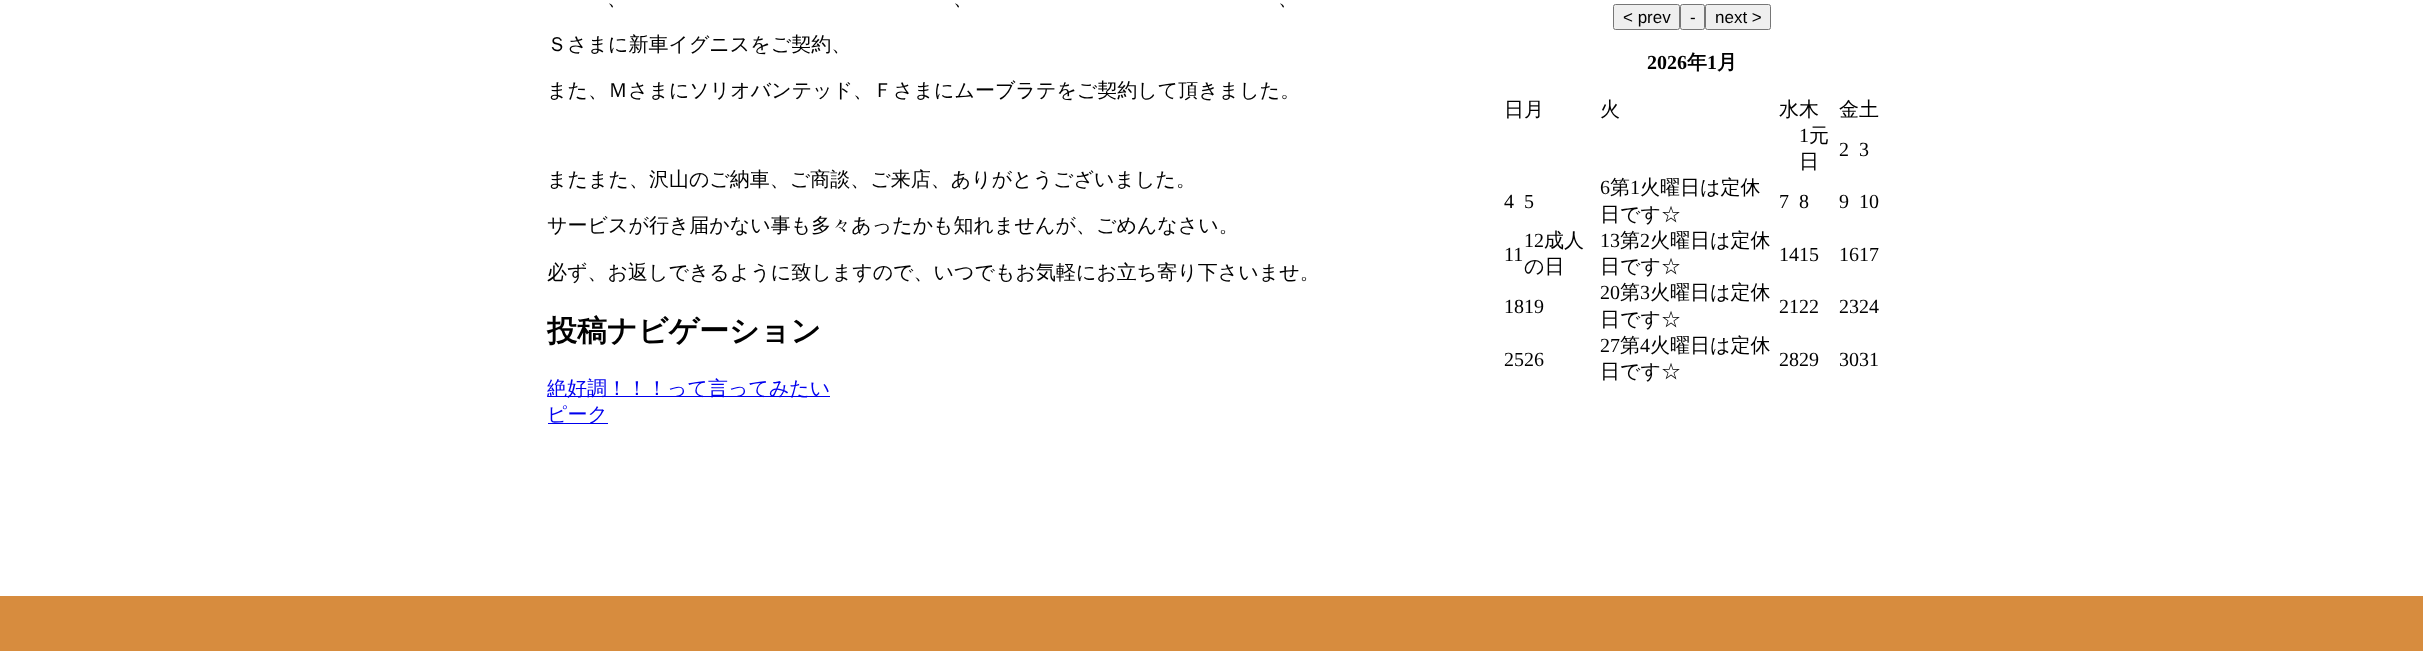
<svg xmlns="http://www.w3.org/2000/svg" width="2423" height="651" viewBox="0 0 2423 651">
  <rect width="100%" height="100%" fill="rgb(255,255,255)"/>
  <g font-family="WenQuanYi Zen Hei" font-size="20" font-weight="500" fill="rgb(0,0,0)">
    <text x="607" y="5">、</text>
    <text x="953" y="5">、</text>
    <text x="1278" y="5">、</text>
    <text x="547" y="51">Ｓさまに新車イグニスをご契約、</text>
    <text x="547" y="97">また、Ｍさまにソリオバンテッド、Ｆさまにムーブラテをご契約して頂きました。</text>
    <text x="547" y="186">またまた、沢山のご納車、ご商談、ご来店、ありがとうございました。</text>
    <text x="547" y="232">サービスが行き届かない事も多々あったかも知れませんが、ごめんなさい。</text>
    <text x="547" y="279">必ず、お返しできるように致しますので、いつでもお気軽にお立ち寄り下さいませ。</text>
  </g>
  <text x="547" y="341" font-family="WenQuanYi Zen Hei" font-size="30" font-weight="bold" fill="rgb(0,0,0)">投稿ナビゲーション</text>
  <rect x="548" y="396" width="282" height="1" fill="rgb(0,0,238)"/>
  <text x="547" y="395" font-family="WenQuanYi Zen Hei" font-size="20" font-weight="500" fill="rgb(0,0,238)">絶好調！！！って言ってみたい</text>
  <rect x="548" y="423" width="60" height="1" fill="rgb(0,0,238)"/>
  <text x="547" y="421" font-family="WenQuanYi Zen Hei" font-size="20" font-weight="500" fill="rgb(0,0,238)">ピーク</text>
  <rect x="1613.5" y="4.5" width="66" height="25" rx="2" fill="rgb(239,239,239)" stroke="rgb(118,118,118)"/>
  <text x="1623" y="23" font-family="Liberation Sans" font-size="17" fill="rgb(0,0,0)">&lt; prev</text>
  <rect x="1680.5" y="4.5" width="24" height="25" rx="2" fill="rgb(239,239,239)" stroke="rgb(118,118,118)"/>
  <text x="1690" y="23" font-family="Liberation Sans" font-size="17" fill="rgb(0,0,0)">-</text>
  <rect x="1705.5" y="4.5" width="65" height="25" rx="2" fill="rgb(239,239,239)" stroke="rgb(118,118,118)"/>
  <text x="1715" y="23" font-family="Liberation Sans" font-size="17" fill="rgb(0,0,0)">next &gt;</text>
  <text x="1647" y="69" font-family="Liberation Serif" font-size="20" font-weight="bold" fill="rgb(0,0,0)">2026</text>
  <text x="1687" y="69" font-family="WenQuanYi Zen Hei" font-size="20" font-weight="bold" fill="rgb(0,0,0)">年</text>
  <text x="1707" y="69" font-family="Liberation Serif" font-size="20" font-weight="bold" fill="rgb(0,0,0)">1</text>
  <text x="1717" y="69" font-family="WenQuanYi Zen Hei" font-size="20" font-weight="bold" fill="rgb(0,0,0)">月</text>
  <g font-family="WenQuanYi Zen Hei" font-size="20" font-weight="500" fill="rgb(0,0,0)">
    <text x="1504" y="116">日月</text>
    <text x="1600" y="116">火</text>
    <text x="1779" y="116">水木</text>
    <text x="1839" y="116">金土</text>
  </g>
  <text x="1799" y="142" font-family="Liberation Serif" font-size="20" fill="rgb(0,0,0)">1</text>
  <g font-family="WenQuanYi Zen Hei" font-size="20" font-weight="500" fill="rgb(0,0,0)">
    <text x="1809" y="142">元</text>
    <text x="1799" y="168">日</text>
  </g>
  <g font-family="Liberation Serif" font-size="20" fill="rgb(0,0,0)">
    <text x="1839" y="156">2</text>
    <text x="1859" y="156">3</text>
    <text x="1504" y="208">4</text>
    <text x="1524" y="208">5</text>
    <text x="1600" y="194">6</text>
  </g>
  <text x="1610" y="194" font-family="WenQuanYi Zen Hei" font-size="20" font-weight="500" fill="rgb(0,0,0)">第</text>
  <text x="1630" y="194" font-family="Liberation Serif" font-size="20" fill="rgb(0,0,0)">1</text>
  <g font-family="WenQuanYi Zen Hei" font-size="20" font-weight="500" fill="rgb(0,0,0)">
    <text x="1640" y="194">火曜日は定休</text>
    <text x="1600" y="221">日です☆</text>
  </g>
  <g font-family="Liberation Serif" font-size="20" fill="rgb(0,0,0)">
    <text x="1779" y="208">7</text>
    <text x="1799" y="208">8</text>
    <text x="1839" y="208">9</text>
    <text x="1859" y="208">10</text>
    <text x="1504" y="261">11</text>
    <text x="1524" y="247">12</text>
  </g>
  <g font-family="WenQuanYi Zen Hei" font-size="20" font-weight="500" fill="rgb(0,0,0)">
    <text x="1544" y="247">成人</text>
    <text x="1524" y="273">の日</text>
  </g>
  <text x="1600" y="247" font-family="Liberation Serif" font-size="20" fill="rgb(0,0,0)">13</text>
  <text x="1620" y="247" font-family="WenQuanYi Zen Hei" font-size="20" font-weight="500" fill="rgb(0,0,0)">第</text>
  <text x="1640" y="247" font-family="Liberation Serif" font-size="20" fill="rgb(0,0,0)">2</text>
  <g font-family="WenQuanYi Zen Hei" font-size="20" font-weight="500" fill="rgb(0,0,0)">
    <text x="1650" y="247">火曜日は定休</text>
    <text x="1600" y="273">日です☆</text>
  </g>
  <g font-family="Liberation Serif" font-size="20" fill="rgb(0,0,0)">
    <text x="1779" y="261">1415</text>
    <text x="1839" y="261">1617</text>
    <text x="1504" y="313">1819</text>
    <text x="1600" y="299">20</text>
  </g>
  <text x="1620" y="299" font-family="WenQuanYi Zen Hei" font-size="20" font-weight="500" fill="rgb(0,0,0)">第</text>
  <text x="1640" y="299" font-family="Liberation Serif" font-size="20" fill="rgb(0,0,0)">3</text>
  <g font-family="WenQuanYi Zen Hei" font-size="20" font-weight="500" fill="rgb(0,0,0)">
    <text x="1650" y="299">火曜日は定休</text>
    <text x="1600" y="326">日です☆</text>
  </g>
  <g font-family="Liberation Serif" font-size="20" fill="rgb(0,0,0)">
    <text x="1779" y="313">2122</text>
    <text x="1839" y="313">2324</text>
    <text x="1504" y="366">2526</text>
    <text x="1600" y="352">27</text>
  </g>
  <text x="1620" y="352" font-family="WenQuanYi Zen Hei" font-size="20" font-weight="500" fill="rgb(0,0,0)">第</text>
  <text x="1640" y="352" font-family="Liberation Serif" font-size="20" fill="rgb(0,0,0)">4</text>
  <g font-family="WenQuanYi Zen Hei" font-size="20" font-weight="500" fill="rgb(0,0,0)">
    <text x="1650" y="352">火曜日は定休</text>
    <text x="1600" y="378">日です☆</text>
  </g>
  <g font-family="Liberation Serif" font-size="20" fill="rgb(0,0,0)">
    <text x="1779" y="366">2829</text>
    <text x="1839" y="366">3031</text>
  </g>
  <rect x="0" y="596" width="2423" height="55" fill="rgb(215,140,62)"/>
</svg>
